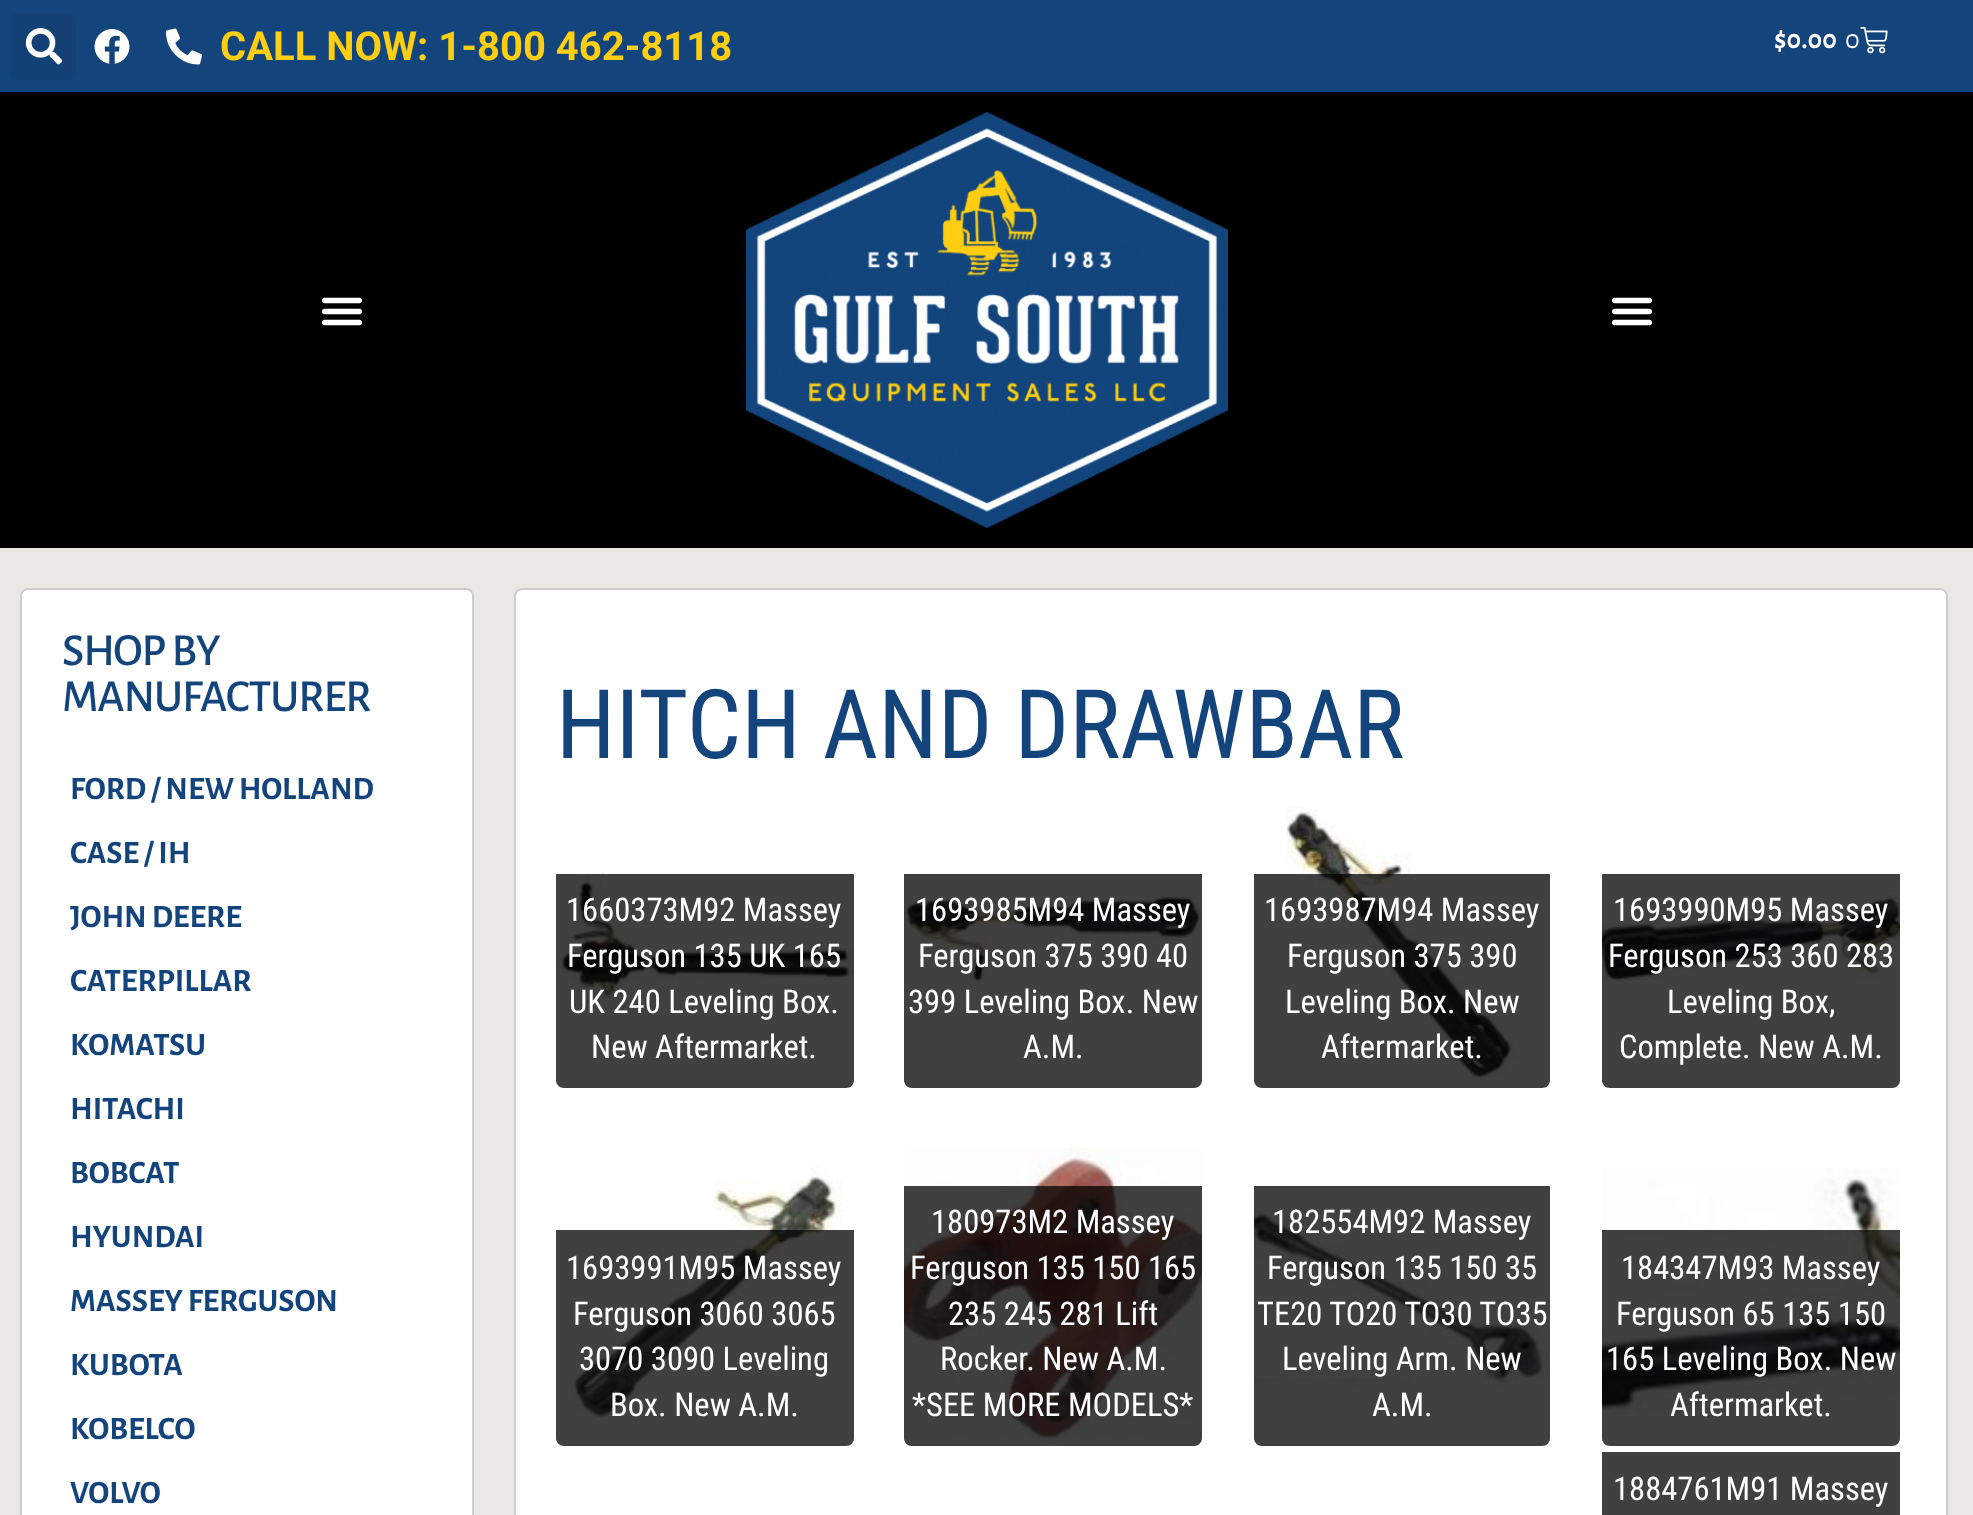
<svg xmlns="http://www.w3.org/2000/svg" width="1973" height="1515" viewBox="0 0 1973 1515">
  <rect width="100%" height="100%" fill="rgb(234,232,228)"/>
  <rect x="0" y="0" width="1973" height="92" fill="rgb(20,68,124)"/>
  <rect x="10" y="14" width="66" height="66" rx="6" fill="rgb(19,65,118)"/>
  <image x="25" y="28" width="38" height="37" href="pic1.png"/>
  <image x="94" y="29" width="36" height="35" href="pic2.png"/>
  <image x="166" y="28" width="36" height="37" href="pic3.png"/>
  <text x="220" y="60" font-family="Roboto" font-size="40" font-weight="bold" fill="rgb(254,206,16)">CALL NOW: 1-800 462-8118</text>
  <text x="1774" y="48" font-family="Alegreya Sans SC" font-size="28" font-weight="bold" fill="rgb(255,255,255)">$0.00</text>
  <text x="1845" y="48" font-family="Alegreya Sans SC" font-size="28" fill="rgb(255,255,255)">0</text>
  <image x="1860" y="27" width="28" height="27" href="pic4.png"/>
  <rect x="0" y="92" width="1973" height="456" fill="rgb(0,0,0)"/>
  <image x="321" y="297" width="42" height="29" href="pic5.png"/>
  <image x="746" y="112" width="482" height="416" href="pic6.png"/>
  <image x="1611" y="297" width="42" height="29" href="pic5.png"/>
  <rect x="21" y="589" width="452" height="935" rx="7" fill="rgb(255,255,255)" stroke="rgb(204,204,204)" stroke-width="2"/>
  <g font-family="Alegreya Sans SC" font-size="46" font-weight="500" letter-spacing="-1" fill="rgb(20,68,124)">
    <text>
      <tspan x="62" y="665">SHOP BY</tspan>
      <tspan x="62" y="711">MANUFACTURER</tspan>
    </text>
  </g>
  <g font-family="Alegreya Sans SC" font-size="32.6" font-weight="bold" fill="rgb(20,68,124)">
    <text>
      <tspan x="70" y="799">FORD / NEW HOLLAND</tspan>
      <tspan x="70" y="863">CASE / IH</tspan>
      <tspan x="70" y="927">JOHN DEERE</tspan>
      <tspan x="70" y="991">CATERPILLAR</tspan>
      <tspan x="70" y="1055">KOMATSU</tspan>
      <tspan x="70" y="1119">HITACHI</tspan>
      <tspan x="70" y="1183">BOBCAT</tspan>
      <tspan x="70" y="1247">HYUNDAI</tspan>
      <tspan x="70" y="1311">MASSEY FERGUSON</tspan>
      <tspan x="70" y="1375">KUBOTA</tspan>
      <tspan x="70" y="1439">KOBELCO</tspan>
      <tspan x="70" y="1503">VOLVO</tspan>
    </text>
  </g>
  <rect x="515" y="589" width="1432" height="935" rx="7" fill="rgb(255,255,255)" stroke="rgb(204,204,204)" stroke-width="2"/>
  <text x="556" y="758" font-family="Roboto Condensed" font-size="96" fill="rgb(20,68,124)">HITCH AND DRAWBAR</text>
  <image x="556" y="872" width="298" height="140" href="pic7.png"/>
  <path d="M556 874H854V1080C854 1084.5 850.5 1088 846 1088H564C559.5 1088 556 1084.5 556 1080Z" fill="rgba(0,0,0,0.75)"/>
  <g font-family="Roboto Condensed" font-size="32.6" fill="rgb(255,255,255)">
    <text x="566" y="921">1660373M92 Massey</text>
    <text x="567" y="967">Ferguson 135 UK 165</text>
    <text x="569" y="1013">UK 240 Leveling Box.</text>
    <text x="591" y="1058">New Aftermarket.</text>
  </g>
  <image x="904" y="886" width="298" height="96" href="pic8.png"/>
  <path d="M904 874H1202V1080C1202 1084.5 1198.5 1088 1194 1088H912C907.5 1088 904 1084.5 904 1080Z" fill="rgba(0,0,0,0.75)"/>
  <g font-family="Roboto Condensed" font-size="32.6" fill="rgb(255,255,255)">
    <text x="915" y="921">1693985M94 Massey</text>
    <text x="918" y="967">Ferguson 375 390 40</text>
    <text x="908" y="1013">399 Leveling Box. New</text>
    <text x="1023" y="1058">A.M.</text>
  </g>
  <image x="1286" y="806" width="236" height="278" href="pic9.png"/>
  <path d="M1254 874H1550V1080C1550 1084.5 1546.5 1088 1542 1088H1262C1257.5 1088 1254 1084.5 1254 1080Z" fill="rgba(0,0,0,0.75)"/>
  <g font-family="Roboto Condensed" font-size="32.6" fill="rgb(255,255,255)">
    <text x="1264" y="921">1693987M94 Massey</text>
    <text x="1287" y="967">Ferguson 375 390</text>
    <text x="1285" y="1013">Leveling Box. New</text>
    <text x="1321" y="1058">Aftermarket.</text>
  </g>
  <image x="1602" y="886" width="298" height="96" href="pic10.png"/>
  <path d="M1602 874H1900V1080C1900 1084.5 1896.5 1088 1892 1088H1610C1605.5 1088 1602 1084.5 1602 1080Z" fill="rgba(0,0,0,0.75)"/>
  <g font-family="Roboto Condensed" font-size="32.6" fill="rgb(255,255,255)">
    <text x="1613" y="921">1693990M95 Massey</text>
    <text x="1608" y="967">Ferguson 253 360 283</text>
    <text x="1667" y="1013">Leveling Box,</text>
    <text x="1619" y="1058">Complete. New A.M.</text>
  </g>
  <image x="571" y="1164" width="271" height="255" href="pic11.png"/>
  <path d="M556 1230H854V1438C854 1442.5 850.5 1446 846 1446H564C559.5 1446 556 1442.5 556 1438Z" fill="rgba(0,0,0,0.75)"/>
  <g font-family="Roboto Condensed" font-size="32.6" fill="rgb(255,255,255)">
    <text x="566" y="1279">1693991M95 Massey</text>
    <text x="573" y="1325">Ferguson 3060 3065</text>
    <text x="579" y="1370">3070 3090 Leveling</text>
    <text x="610" y="1416">Box. New A.M.</text>
  </g>
  <image x="904" y="1148" width="298" height="298" href="pic12.png"/>
  <path d="M904 1186H1202V1438C1202 1442.5 1198.5 1446 1194 1446H912C907.5 1446 904 1442.5 904 1438Z" fill="rgba(0,0,0,0.75)"/>
  <g font-family="Roboto Condensed" font-size="32.6" fill="rgb(255,255,255)">
    <text x="931" y="1233">180973M2 Massey</text>
    <text x="910" y="1279">Ferguson 135 150 165</text>
    <text x="948" y="1325">235 245 281 Lift</text>
    <text x="940" y="1370">Rocker. New A.M.</text>
    <text x="912" y="1416">*SEE MORE MODELS*</text>
  </g>
  <image x="1254" y="1206" width="296" height="186" href="pic13.png"/>
  <path d="M1254 1186H1550V1438C1550 1442.5 1546.5 1446 1542 1446H1262C1257.5 1446 1254 1442.5 1254 1438Z" fill="rgba(0,0,0,0.75)"/>
  <g font-family="Roboto Condensed" font-size="32.6" fill="rgb(255,255,255)">
    <text x="1272" y="1233">182554M92 Massey</text>
    <text x="1267" y="1279">Ferguson 135 150 35</text>
    <text x="1257" y="1325">TE20 TO20 TO30 TO35</text>
    <text x="1282" y="1370">Leveling Arm. New</text>
    <text x="1372" y="1416">A.M.</text>
  </g>
  <image x="1602" y="1168" width="298" height="250" href="pic14.png"/>
  <path d="M1602 1230H1900V1438C1900 1442.5 1896.5 1446 1892 1446H1610C1605.5 1446 1602 1442.5 1602 1438Z" fill="rgba(0,0,0,0.75)"/>
  <g font-family="Roboto Condensed" font-size="32.6" fill="rgb(255,255,255)">
    <text x="1621" y="1279">184347M93 Massey</text>
    <text x="1616" y="1325">Ferguson 65 135 150</text>
    <text x="1606" y="1370">165 Leveling Box. New</text>
    <text x="1670" y="1416">Aftermarket.</text>
  </g>
  <rect x="1602" y="1452" width="298" height="63" fill="rgb(64,64,64)"/>
  <text x="1613" y="1500" font-family="Roboto Condensed" font-size="32.6" fill="rgb(255,255,255)">1884761M91 Massey</text>
</svg>
